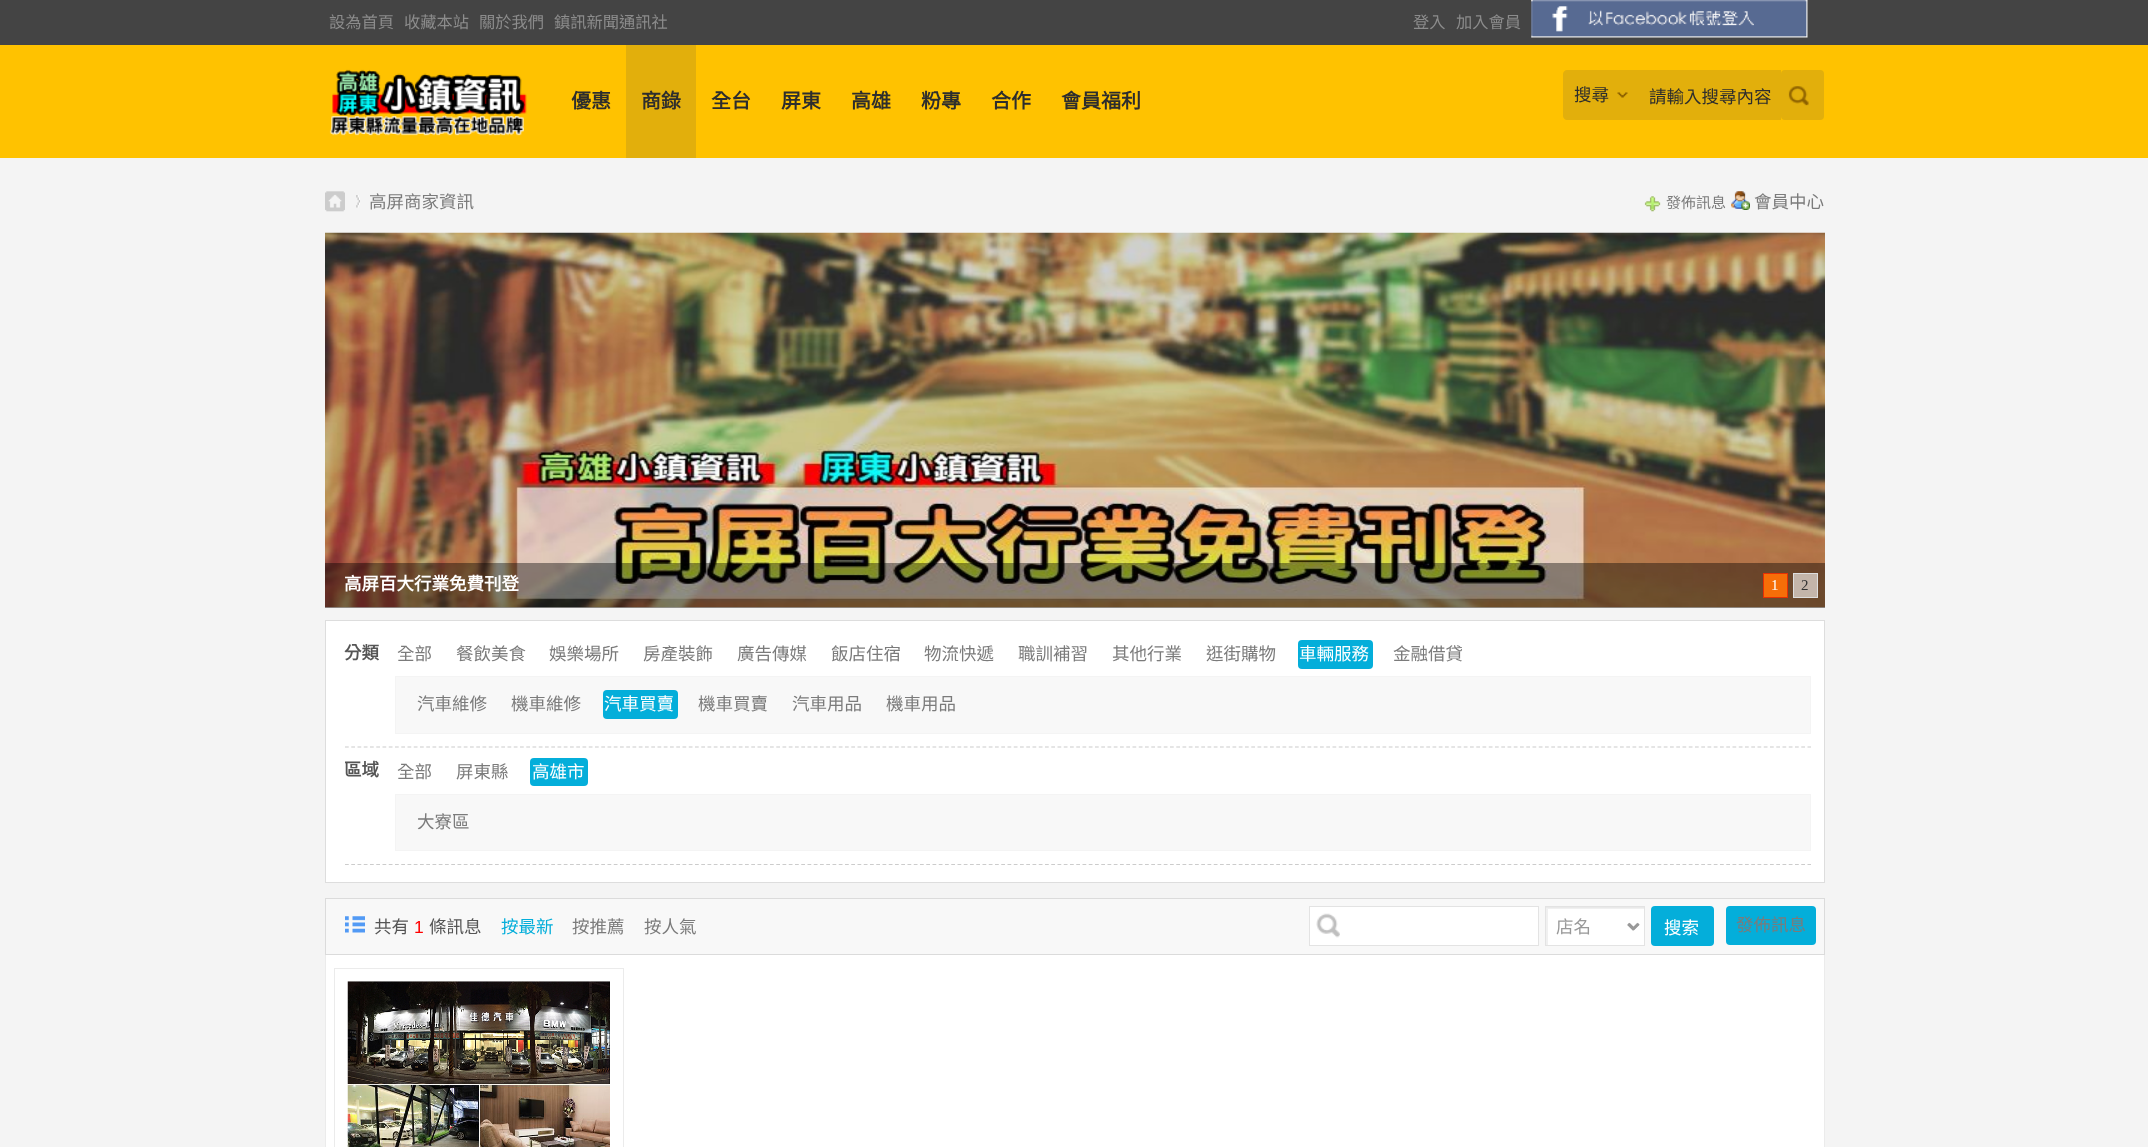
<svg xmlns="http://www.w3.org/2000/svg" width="2148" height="1147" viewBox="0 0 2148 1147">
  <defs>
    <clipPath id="clip1"><rect x="1546" y="908" width="98" height="37"/></clipPath>
  </defs>
  <rect width="100%" height="100%" fill="rgb(244,244,244)"/>
  <rect x="0" y="0" width="2148" height="45" fill="rgb(68,68,68)"/>
  <g font-family="Noto Sans CJK TC" font-size="16.25" fill="rgb(140,140,140)">
    <text x="329" y="28">設為首頁</text>
    <text x="404" y="28">收藏本站</text>
    <text x="479" y="28">關於我們</text>
    <text x="554" y="28">鎮訊新聞通訊社</text>
    <text x="1413" y="28">登入</text>
    <text x="1456" y="28">加入會員</text>
  </g>
  <image x="1531" y="0" width="277" height="38" href="pic1.png"/>
  <rect x="0" y="45" width="2148" height="113" fill="rgb(255,194,0)"/>
  <image x="329" y="69" width="198" height="67" href="pic2.png"/>
  <text x="571" y="108" font-family="Noto Sans CJK TC" font-size="20" font-weight="bold" fill="rgb(45,45,45)">優惠</text>
  <rect x="626" y="45" width="70" height="113" fill="rgb(226,175,12)"/>
  <g font-family="Noto Sans CJK TC" font-size="20" font-weight="bold" fill="rgb(45,45,45)">
    <text x="641" y="108">商錄</text>
    <text x="711" y="108">全台</text>
    <text x="781" y="108">屏東</text>
    <text x="851" y="108">高雄</text>
    <text x="921" y="108">粉專</text>
    <text x="991" y="108">合作</text>
    <text x="1061" y="108">會員福利</text>
  </g>
  <path d="M1567 70H1641V120H1567C1565 120 1563 118 1563 116V74C1563 72 1565 70 1567 70Z" fill="rgb(226,175,12)"/>
  <image x="1617" y="92" width="11" height="6" href="pic3.png"/>
  <text x="1574" y="101" font-family="Noto Sans CJK TC" font-size="17.5" fill="rgb(45,45,45)">搜尋</text>
  <rect x="1641" y="70" width="140" height="50" fill="rgb(226,175,12)"/>
  <text x="1649" y="103" font-family="Noto Sans CJK TC" font-size="17.5" fill="rgb(45,45,45)">請輸入搜尋內容</text>
  <rect x="1781" y="70" width="43" height="50" rx="4" fill="rgb(226,175,12)"/>
  <image x="1788" y="86" width="21" height="20" href="pic4.png"/>
  <image x="325" y="191" width="20" height="21" href="pic5.png"/>
  <image x="356" y="195" width="4" height="13" href="pic6.png"/>
  <text x="369" y="208" font-family="Noto Sans CJK TC" font-size="17.5" fill="rgb(123,123,123)">高屏商家資訊</text>
  <image x="1644" y="196" width="17" height="16" href="pic7.png"/>
  <text x="1666" y="208" font-family="Noto Sans CJK TC" font-size="15" fill="rgb(123,123,123)">發佈訊息</text>
  <image x="1731" y="191" width="19" height="19" href="pic8.png"/>
  <text x="1754" y="208" font-family="Noto Sans CJK TC" font-size="17.5" fill="rgb(123,123,123)">會員中心</text>
  <rect x="325" y="607" width="1500" height="1" fill="rgb(255,255,255)"/>
  <image x="325" y="232" width="1500" height="376" href="pic9.png"/>
  <rect x="325" y="563" width="1500" height="45" fill="rgba(0,0,0,0.4)"/>
  <text x="344" y="590" font-family="Noto Sans CJK TC" font-size="17.5" font-weight="bold" fill="rgb(255,255,255)">高屏百大行業免費刊登</text>
  <rect x="1763.5" y="573.5" width="24" height="24" fill="rgb(246,110,8)" stroke="rgb(230,48,3)"/>
  <text x="1771" y="590" font-family="Liberation Serif" font-size="15" fill="rgb(255,255,255)">1</text>
  <rect x="1793.5" y="573.5" width="24" height="24" fill="rgba(255,255,255,0.6)" stroke="rgb(222,222,222)"/>
  <text x="1801" y="590" font-family="Liberation Serif" font-size="15" fill="rgb(51,51,51)">2</text>
  <rect x="325.5" y="620.5" width="1499" height="262" fill="rgb(255,255,255)" stroke="rgb(221,221,221)"/>
  <path d="M345 747H1811" fill="none" stroke="rgb(204,204,204)" stroke-width="1.2" stroke-dasharray="3.75 2.5"/>
  <text x="344" y="659" font-family="Noto Sans CJK TC" font-size="17.5" font-weight="bold" fill="rgb(85,85,85)">分類</text>
  <g font-family="Noto Sans CJK TC" font-size="17.5" fill="rgb(123,123,123)">
    <text x="397" y="660">全部</text>
    <text x="456" y="660">餐飲美食</text>
    <text x="549" y="660">娛樂場所</text>
    <text x="643" y="660">房產裝飾</text>
    <text x="737" y="660">廣告傳媒</text>
    <text x="831" y="660">飯店住宿</text>
    <text x="924" y="660">物流快遞</text>
    <text x="1018" y="660">職訓補習</text>
    <text x="1112" y="660">其他行業</text>
    <text x="1206" y="660">逛街購物</text>
  </g>
  <rect x="1298" y="640" width="75" height="29" rx="4" fill="rgb(4,174,218)"/>
  <text x="1299" y="660" font-family="Noto Sans CJK TC" font-size="17.5" fill="rgb(255,255,255)">車輛服務</text>
  <text x="1393" y="660" font-family="Noto Sans CJK TC" font-size="17.5" fill="rgb(123,123,123)">金融借貸</text>
  <rect x="395.5" y="676.5" width="1415" height="57" fill="rgb(248,248,248)" stroke="rgb(244,244,244)"/>
  <g font-family="Noto Sans CJK TC" font-size="17.5" fill="rgb(123,123,123)">
    <text x="417" y="710">汽車維修</text>
    <text x="511" y="710">機車維修</text>
  </g>
  <rect x="603" y="690" width="75" height="29" rx="4" fill="rgb(4,174,218)"/>
  <text x="604" y="710" font-family="Noto Sans CJK TC" font-size="17.5" fill="rgb(255,255,255)">汽車買賣</text>
  <g font-family="Noto Sans CJK TC" font-size="17.5" fill="rgb(123,123,123)">
    <text x="698" y="710">機車買賣</text>
    <text x="792" y="710">汽車用品</text>
    <text x="886" y="710">機車用品</text>
  </g>
  <path d="M345 864.5H1811" fill="none" stroke="rgb(204,204,204)" stroke-width="1.2" stroke-dasharray="3.75 2.5"/>
  <text x="344" y="776" font-family="Noto Sans CJK TC" font-size="17.5" font-weight="bold" fill="rgb(85,85,85)">區域</text>
  <g font-family="Noto Sans CJK TC" font-size="17.5" fill="rgb(123,123,123)">
    <text x="397" y="778">全部</text>
    <text x="456" y="778">屏東縣</text>
  </g>
  <rect x="530" y="758" width="58" height="28" rx="4" fill="rgb(4,174,218)"/>
  <text x="532" y="778" font-family="Noto Sans CJK TC" font-size="17.5" fill="rgb(255,255,255)">高雄市</text>
  <rect x="395.5" y="794.5" width="1415" height="56" fill="rgb(248,248,248)" stroke="rgb(244,244,244)"/>
  <text x="417" y="828" font-family="Noto Sans CJK TC" font-size="17.5" fill="rgb(123,123,123)">大寮區</text>
  <rect x="325.5" y="898.5" width="1499" height="56" fill="none" stroke="rgb(219,219,219)"/>
  <rect x="326" y="899" width="1498" height="55" fill="rgb(248,248,248)"/>
  <image x="345" y="916" width="20" height="17" href="pic10.png"/>
  <text x="374" y="933" font-family="Noto Sans CJK TC" font-size="17.5" fill="rgb(85,85,85)">共有</text>
  <text x="414" y="933" font-family="Liberation Sans" font-size="17.5" fill="rgb(255,0,0)">1</text>
  <text x="429" y="933" font-family="Noto Sans CJK TC" font-size="17.5" fill="rgb(85,85,85)">條訊息</text>
  <text x="501" y="933" font-family="Noto Sans CJK TC" font-size="17.5" fill="rgb(4,174,218)">按最新</text>
  <g font-family="Noto Sans CJK TC" font-size="17.5" fill="rgb(123,123,123)">
    <text x="572" y="933">按推薦</text>
    <text x="644" y="933">按人氣</text>
  </g>
  <rect x="1310" y="907" width="228" height="38" fill="rgb(255,255,255)"/>
  <image x="1316" y="913" width="24" height="25" href="pic11.png"/>
  <rect x="1309.5" y="906.5" width="229" height="39" fill="none" stroke="rgb(227,227,227)"/>
  <rect x="1546" y="907" width="98" height="38" fill="rgb(255,255,255)"/>
  <image x="1546" y="907" width="98" height="24" href="pic12.png"/>
  <g clip-path="url(#clip1)">
    <path d="M1422 784H1768V1069H1422ZM1548 909H1645V946H1548Z" fill="rgb(240,240,240)" fill-rule="evenodd"/>
  </g>
  <rect x="1545.5" y="906.5" width="99" height="39" fill="none" stroke="rgb(227,227,227)"/>
  <path d="M1628 924L1633 929L1638 924" fill="none" stroke="rgb(153,153,153)" stroke-width="2.5"/>
  <text x="1556" y="933" font-family="Noto Sans CJK TC" font-size="17.5" fill="rgb(153,153,153)">店名</text>
  <rect x="1651" y="906" width="63" height="40" rx="4" fill="rgb(4,174,218)"/>
  <text x="1664" y="934" font-family="Noto Sans CJK TC" font-size="17.5" fill="rgb(255,255,255)">搜索</text>
  <rect x="1726" y="906" width="90" height="39" rx="4" fill="rgb(4,174,218)"/>
  <text x="1736" y="931" font-family="Noto Sans CJK TC" font-size="17.5" fill="rgb(123,123,123)">發佈訊息</text>
  <rect x="326" y="955" width="1498" height="192" fill="rgb(255,255,255)"/>
  <rect x="1824" y="955" width="1" height="192" fill="rgb(235,235,235)"/>
  <rect x="325" y="955" width="1" height="192" fill="rgb(235,235,235)"/>
  <rect x="334.5" y="968.5" width="289" height="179" fill="none" stroke="rgb(235,235,235)"/>
  <image x="347" y="981" width="263" height="166" href="pic13.png"/>
</svg>
